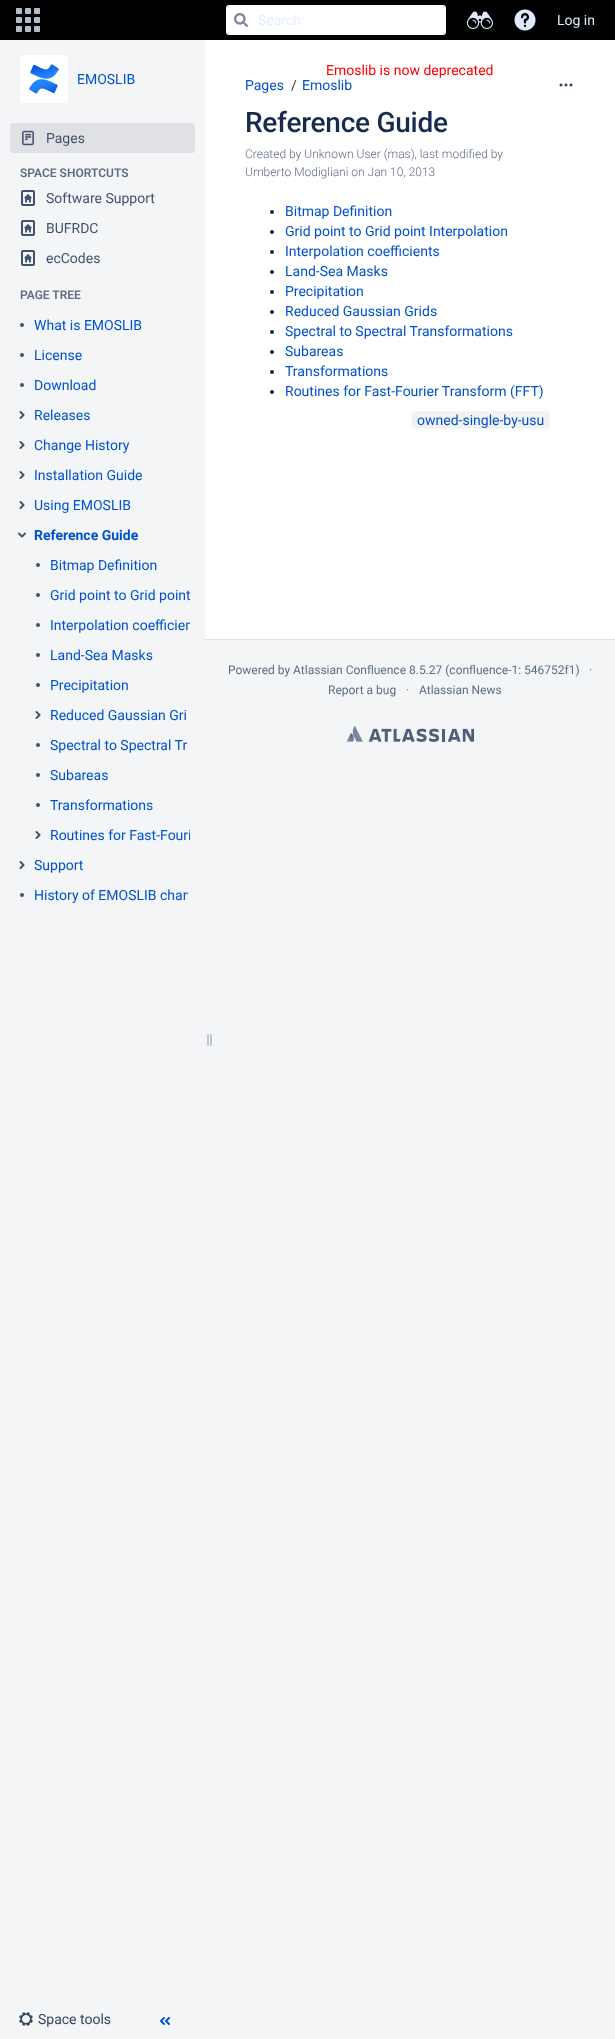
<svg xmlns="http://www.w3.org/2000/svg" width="615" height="2039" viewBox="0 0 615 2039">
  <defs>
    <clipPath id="clip1"><rect x="50" y="615" width="140" height="20"/></clipPath>
    <clipPath id="clip2"><rect x="50" y="825" width="140" height="20"/></clipPath>
    <clipPath id="clip3"><rect x="34" y="885" width="154" height="20"/></clipPath>
  </defs>
  <rect width="100%" height="100%" fill="rgb(244,245,247)"/>
  <rect x="0" y="0" width="615" height="40" fill="rgb(0,0,0)"/>
  <image x="16" y="8" width="24" height="24" href="pic1.png"/>
  <rect x="226" y="5" width="220" height="30" rx="3" fill="rgb(255,255,255)"/>
  <image x="234" y="13" width="14" height="14" href="pic2.png"/>
  <text x="258" y="25" font-family="Roboto" font-size="14" fill="rgb(229,239,255)">Search</text>
  <image x="466" y="11" width="27" height="18" href="pic3.png"/>
  <image x="514" y="9" width="22" height="22" href="pic4.png"/>
  <text x="557" y="25" font-family="Roboto" font-size="14" fill="rgb(222,235,255)">Log in</text>
  <rect x="20" y="55" width="48" height="48" rx="3" fill="rgb(255,255,255)"/>
  <image x="29" y="64" width="30" height="30" href="pic5.png"/>
  <text x="77" y="84" font-family="Roboto" font-size="14" fill="rgb(0,82,204)">EMOSLIB</text>
  <rect x="10" y="123" width="185" height="30" rx="3" fill="rgb(223,225,229)"/>
  <image x="22" y="130" width="12" height="16" href="pic6.png"/>
  <text x="46" y="143" font-family="Roboto" font-size="14" fill="rgb(66,82,110)">Pages</text>
  <text x="20" y="177" font-family="Roboto" font-size="12" font-weight="600" fill="rgb(94,108,132)">SPACE SHORTCUTS</text>
  <image x="21" y="190" width="14" height="16" href="pic7.png"/>
  <text x="46" y="203" font-family="Roboto" font-size="14" fill="rgb(66,82,110)">Software Support</text>
  <image x="21" y="220" width="14" height="16" href="pic7.png"/>
  <text x="46" y="233" font-family="Roboto" font-size="14" fill="rgb(66,82,110)">BUFRDC</text>
  <image x="21" y="250" width="14" height="16" href="pic7.png"/>
  <text x="46" y="263" font-family="Roboto" font-size="14" fill="rgb(66,82,110)">ecCodes</text>
  <text x="20" y="299" font-family="Roboto" font-size="12" font-weight="600" fill="rgb(94,108,132)">PAGE TREE</text>
  <circle cx="22" cy="325" r="2" fill="rgb(66,82,110)"/>
  <text x="34" y="330" font-family="Roboto" font-size="14" fill="rgb(0,82,204)">What is EMOSLIB</text>
  <circle cx="22" cy="355" r="2" fill="rgb(66,82,110)"/>
  <text x="34" y="360" font-family="Roboto" font-size="14" fill="rgb(0,82,204)">License</text>
  <circle cx="22" cy="385" r="2" fill="rgb(66,82,110)"/>
  <text x="34" y="390" font-family="Roboto" font-size="14" fill="rgb(0,82,204)">Download</text>
  <image x="19" y="411" width="6" height="8" href="pic8.png"/>
  <text x="34" y="420" font-family="Roboto" font-size="14" fill="rgb(0,82,204)">Releases</text>
  <image x="19" y="441" width="6" height="8" href="pic8.png"/>
  <text x="34" y="450" font-family="Roboto" font-size="14" fill="rgb(0,82,204)">Change History</text>
  <image x="19" y="471" width="6" height="8" href="pic8.png"/>
  <text x="34" y="480" font-family="Roboto" font-size="14" fill="rgb(0,82,204)">Installation Guide</text>
  <image x="19" y="501" width="6" height="8" href="pic8.png"/>
  <text x="34" y="510" font-family="Roboto" font-size="14" fill="rgb(0,82,204)">Using EMOSLIB</text>
  <image x="18" y="532" width="8" height="6" href="pic9.png"/>
  <text x="34" y="540" font-family="Roboto" font-size="14" font-weight="bold" fill="rgb(0,82,204)">Reference Guide</text>
  <circle cx="38" cy="565" r="2" fill="rgb(66,82,110)"/>
  <text x="50" y="570" font-family="Roboto" font-size="14" fill="rgb(0,82,204)">Bitmap Definition</text>
  <circle cx="38" cy="595" r="2" fill="rgb(66,82,110)"/>
  <text x="50" y="600" font-family="Roboto" font-size="14" fill="rgb(0,82,204)">Grid point to Grid point</text>
  <circle cx="38" cy="625" r="2" fill="rgb(66,82,110)"/>
  <g clip-path="url(#clip1)">
    <text x="50" y="630" font-family="Roboto" font-size="14" fill="rgb(0,82,204)">Interpolation coefficien</text>
  </g>
  <circle cx="38" cy="655" r="2" fill="rgb(66,82,110)"/>
  <text x="50" y="660" font-family="Roboto" font-size="14" fill="rgb(0,82,204)">Land-Sea Masks</text>
  <circle cx="38" cy="685" r="2" fill="rgb(66,82,110)"/>
  <text x="50" y="690" font-family="Roboto" font-size="14" fill="rgb(0,82,204)">Precipitation</text>
  <image x="35" y="711" width="6" height="8" href="pic8.png"/>
  <text x="50" y="720" font-family="Roboto" font-size="14" fill="rgb(0,82,204)">Reduced Gaussian Gri</text>
  <circle cx="38" cy="745" r="2" fill="rgb(66,82,110)"/>
  <text x="50" y="750" font-family="Roboto" font-size="14" fill="rgb(0,82,204)">Spectral to Spectral Tr</text>
  <circle cx="38" cy="775" r="2" fill="rgb(66,82,110)"/>
  <text x="50" y="780" font-family="Roboto" font-size="14" fill="rgb(0,82,204)">Subareas</text>
  <circle cx="38" cy="805" r="2" fill="rgb(66,82,110)"/>
  <text x="50" y="810" font-family="Roboto" font-size="14" fill="rgb(0,82,204)">Transformations</text>
  <image x="35" y="831" width="6" height="8" href="pic8.png"/>
  <g clip-path="url(#clip2)">
    <text x="50" y="840" font-family="Roboto" font-size="14" fill="rgb(0,82,204)">Routines for Fast-Fouri</text>
  </g>
  <image x="19" y="861" width="6" height="8" href="pic8.png"/>
  <text x="34" y="870" font-family="Roboto" font-size="14" fill="rgb(0,82,204)">Support</text>
  <circle cx="22" cy="895" r="2" fill="rgb(66,82,110)"/>
  <g clip-path="url(#clip3)">
    <text x="34" y="900" font-family="Roboto" font-size="14" fill="rgb(0,82,204)">History of EMOSLIB chan</text>
  </g>
  <image x="207" y="1034" width="5" height="12" href="pic10.png"/>
  <image x="19" y="2012" width="14" height="14" href="pic11.png"/>
  <text x="38" y="2024" font-family="Roboto" font-size="14" fill="rgb(52,69,99)">Space tools</text>
  <image x="160" y="2017" width="10" height="8" href="pic12.png"/>
  <rect x="205" y="40" width="410" height="599" fill="rgb(255,255,255)"/>
  <rect x="205" y="639" width="410" height="1" fill="rgb(223,225,230)"/>
  <text x="326" y="75" font-family="Roboto" font-size="14" fill="rgb(255,0,0)">Emoslib is now deprecated</text>
  <text x="245" y="90" font-family="Roboto" font-size="14" fill="rgb(0,82,204)">Pages</text>
  <text x="291" y="90" font-family="Roboto" font-size="14" fill="rgb(51,51,51)">/</text>
  <text x="302" y="90" font-family="Roboto" font-size="14" fill="rgb(0,82,204)">Emoslib</text>
  <text x="245" y="132" font-family="Roboto" font-size="28" font-weight="500" letter-spacing="-0.25" fill="rgb(23,43,77)">Reference Guide</text>
  <image x="559" y="83" width="14" height="4" href="pic13.png"/>
  <g font-family="Roboto" font-size="12" font-weight="300" fill="rgb(94,108,132)">
    <text>
      <tspan x="245" y="158">Created by Unknown User (mas), last modified by</tspan>
      <tspan x="245" y="176">Umberto Modigliani on Jan 10, 2013</tspan>
    </text>
  </g>
  <circle cx="272" cy="212" r="2" fill="rgb(23,43,77)"/>
  <text x="285" y="216" font-family="Roboto" font-size="14" fill="rgb(0,82,204)">Bitmap Definition</text>
  <circle cx="272" cy="232" r="2" fill="rgb(23,43,77)"/>
  <text x="285" y="236" font-family="Roboto" font-size="14" fill="rgb(0,82,204)">Grid point to Grid point Interpolation</text>
  <circle cx="272" cy="252" r="2" fill="rgb(23,43,77)"/>
  <text x="285" y="256" font-family="Roboto" font-size="14" fill="rgb(0,82,204)">Interpolation coefficients</text>
  <circle cx="272" cy="272" r="2" fill="rgb(23,43,77)"/>
  <text x="285" y="276" font-family="Roboto" font-size="14" fill="rgb(0,82,204)">Land-Sea Masks</text>
  <circle cx="272" cy="292" r="2" fill="rgb(23,43,77)"/>
  <text x="285" y="296" font-family="Roboto" font-size="14" fill="rgb(0,82,204)">Precipitation</text>
  <circle cx="272" cy="312" r="2" fill="rgb(23,43,77)"/>
  <text x="285" y="316" font-family="Roboto" font-size="14" fill="rgb(0,82,204)">Reduced Gaussian Grids</text>
  <circle cx="272" cy="332" r="2" fill="rgb(23,43,77)"/>
  <text x="285" y="336" font-family="Roboto" font-size="14" fill="rgb(0,82,204)">Spectral to Spectral Transformations</text>
  <circle cx="272" cy="352" r="2" fill="rgb(23,43,77)"/>
  <text x="285" y="356" font-family="Roboto" font-size="14" fill="rgb(0,82,204)">Subareas</text>
  <circle cx="272" cy="372" r="2" fill="rgb(23,43,77)"/>
  <text x="285" y="376" font-family="Roboto" font-size="14" fill="rgb(0,82,204)">Transformations</text>
  <circle cx="272" cy="392" r="2" fill="rgb(23,43,77)"/>
  <text x="285" y="396" font-family="Roboto" font-size="14" fill="rgb(0,82,204)">Routines for Fast-Fourier Transform (FFT)</text>
  <rect x="411.5" y="411.5" width="138" height="17" rx="2.5" fill="rgb(242,242,242)" stroke="rgb(244,245,247)"/>
  <text x="417" y="425" font-family="Roboto" font-size="14" fill="rgb(0,82,204)">owned-single-by-usu</text>
  <g font-family="Roboto" font-size="12" fill="rgb(94,108,132)">
    <text x="228" y="674">Powered by Atlassian Confluence 8.5.27 (confluence-1: 546752f1)</text>
    <text x="589" y="674">·</text>
    <text x="328" y="694">Report a bug</text>
    <text x="406" y="694">·</text>
    <text x="419" y="694">Atlassian News</text>
  </g>
  <image x="347" y="726" width="127" height="16" href="pic14.png"/>
</svg>
